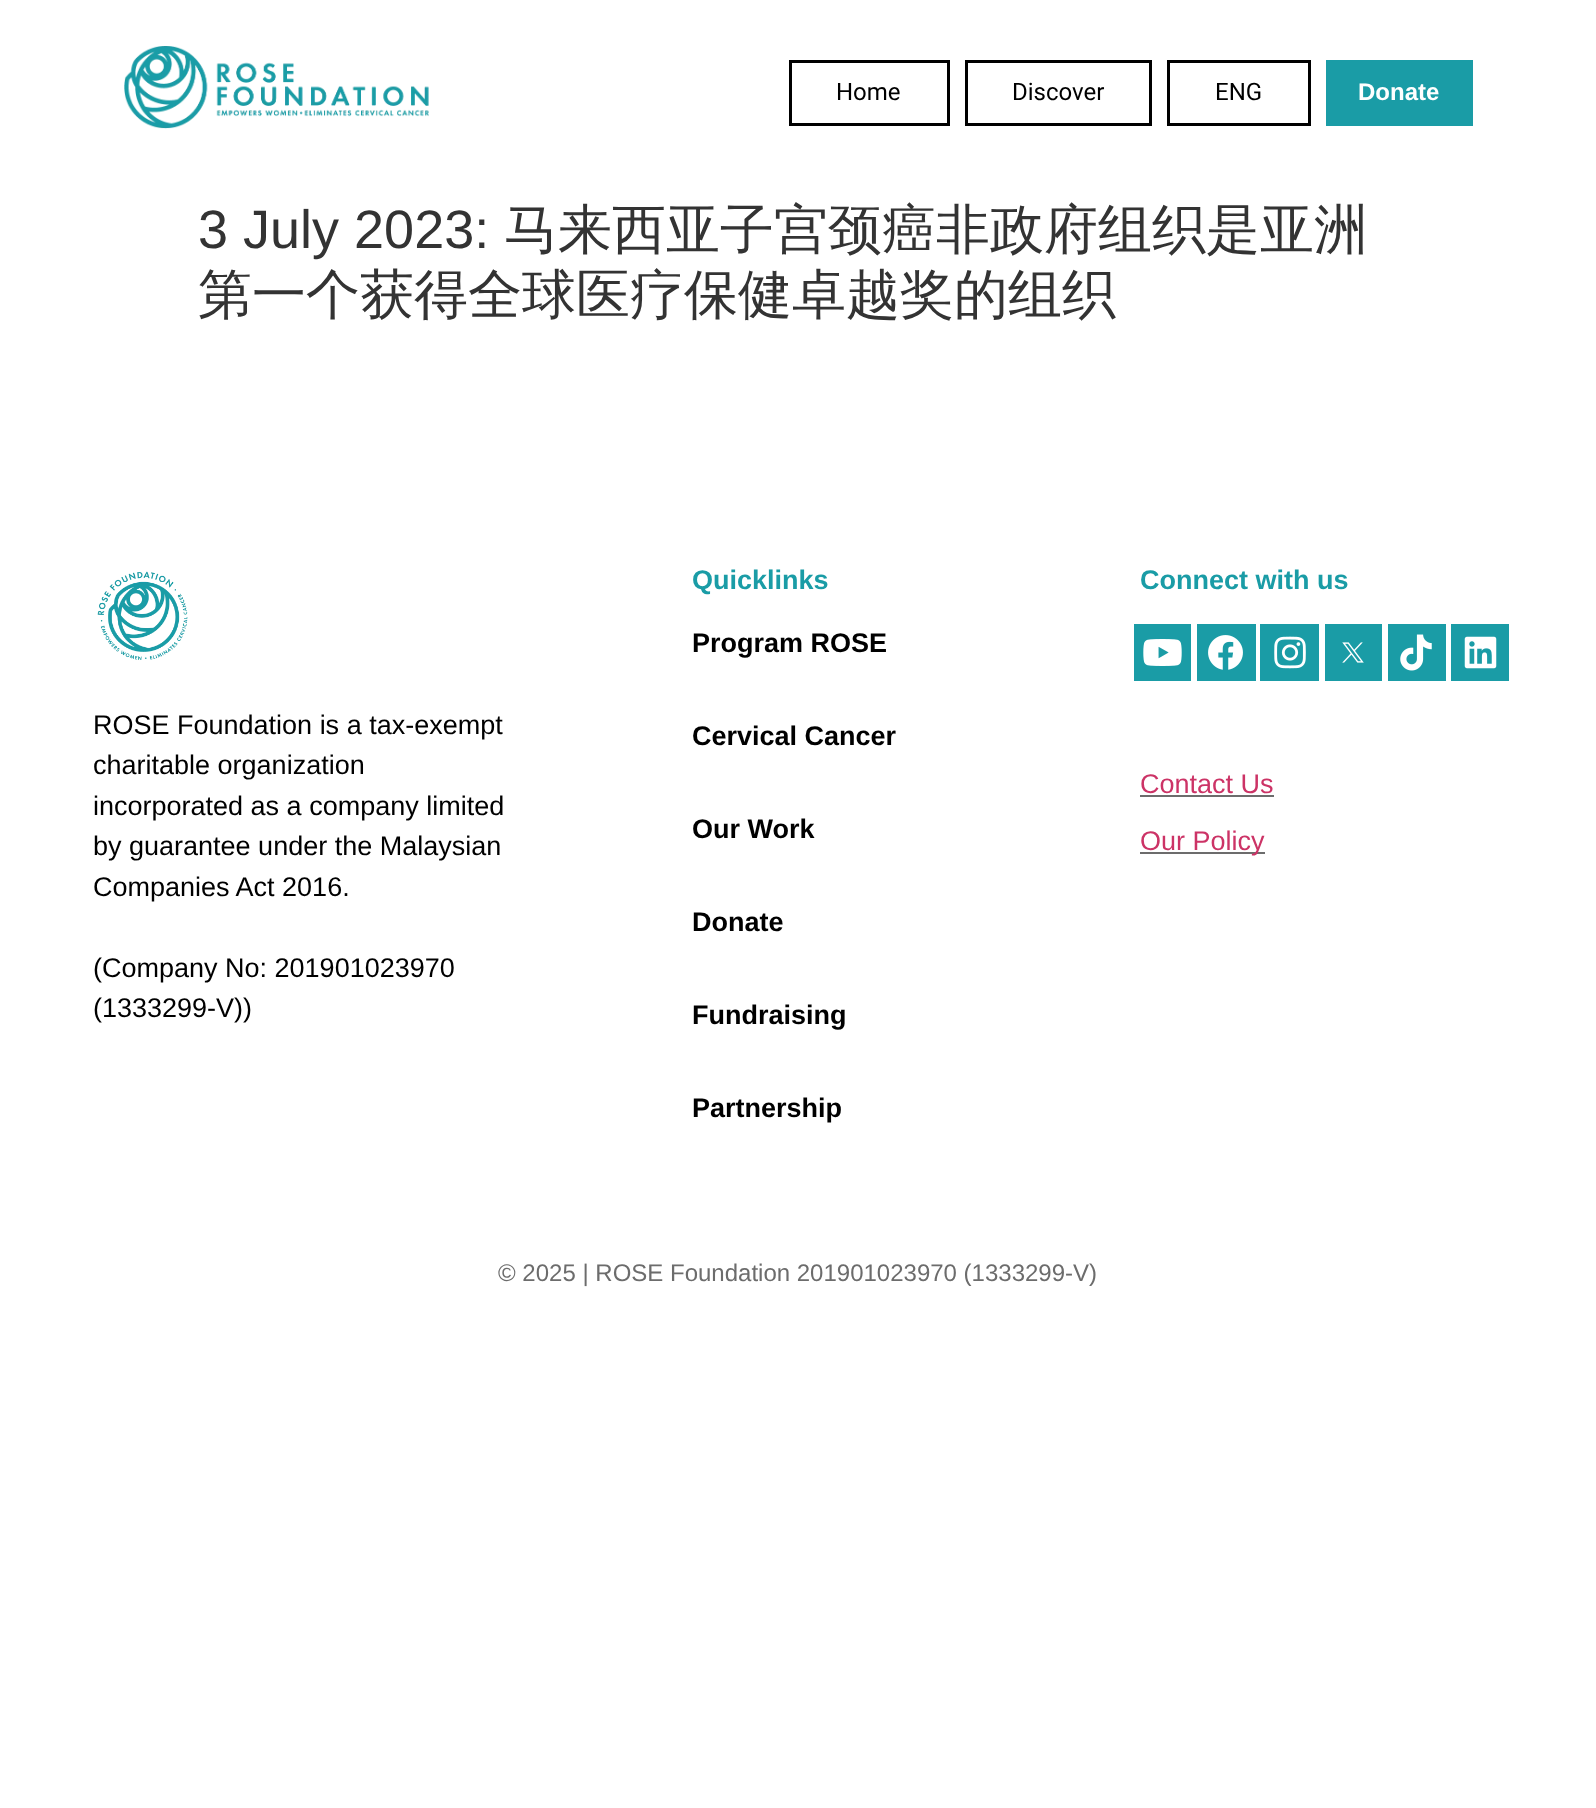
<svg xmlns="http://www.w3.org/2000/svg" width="1596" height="1808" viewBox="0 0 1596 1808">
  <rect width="100%" height="100%" fill="rgb(255,255,255)"/>
  <image x="124" y="46" width="305" height="83" href="pic1.png"/>
  <rect x="790.5" y="61.5" width="158" height="63" fill="none" stroke="rgb(0,0,0)" stroke-width="3"/>
  <text x="836" y="100" font-family="Roboto" font-size="24" fill="rgb(0,0,0)">Home</text>
  <rect x="966.5" y="61.5" width="184" height="63" fill="none" stroke="rgb(0,0,0)" stroke-width="3"/>
  <text x="1012" y="100" font-family="Roboto" font-size="24" fill="rgb(0,0,0)">Discover</text>
  <rect x="1168.5" y="61.5" width="141" height="63" fill="none" stroke="rgb(0,0,0)" stroke-width="3"/>
  <text x="1215" y="100" font-family="Roboto" font-size="24" fill="rgb(0,0,0)">ENG</text>
  <rect x="1326" y="60" width="147" height="66" fill="rgb(26,156,166)"/>
  <text x="1358" y="100" font-family="Liberation Sans" font-size="24" font-weight="bold" fill="rgb(255,255,255)">Donate</text>
  <text x="198" y="248" font-family="Liberation Sans" font-size="54" fill="rgb(51,51,51)">3 July 2023:</text>
  <g font-family="WenQuanYi Zen Hei" font-size="54" font-weight="500" fill="rgb(51,51,51)">
    <text x="504" y="248">马来西亚子宫颈癌非政府组织是亚洲</text>
    <text x="198" y="313">第一个获得全球医疗保健卓越奖的组织</text>
  </g>
  <image x="97" y="571" width="91" height="89" href="pic2.png"/>
  <g font-family="Liberation Sans" font-size="27" fill="rgb(0,0,0)">
    <text>
      <tspan x="93" y="734">ROSE Foundation is a tax-exempt</tspan>
      <tspan x="93" y="774">charitable organization</tspan>
      <tspan x="93" y="815">incorporated as a company limited</tspan>
      <tspan x="93" y="855">by guarantee under the Malaysian</tspan>
      <tspan x="93" y="896">Companies Act 2016.</tspan>
    </text>
    <text>
      <tspan x="93" y="977">(Company No: 201901023970</tspan>
      <tspan x="93" y="1017">(1333299-V))</tspan>
    </text>
  </g>
  <text x="692" y="589" font-family="Liberation Sans" font-size="27" font-weight="bold" fill="rgb(26,156,166)">Quicklinks</text>
  <g font-family="Liberation Sans" font-size="27" font-weight="bold" fill="rgb(0,0,0)">
    <text x="692" y="652">Program ROSE</text>
    <text x="692" y="745">Cervical Cancer</text>
    <text x="692" y="838">Our Work</text>
    <text x="692" y="931">Donate</text>
    <text x="692" y="1024">Fundraising</text>
    <text x="692" y="1117">Partnership</text>
  </g>
  <text x="1140" y="589" font-family="Liberation Sans" font-size="27" font-weight="bold" fill="rgb(26,156,166)">Connect with us</text>
  <rect x="1134" y="624" width="57" height="57" fill="rgb(26,156,166)"/>
  <image x="1143" y="639" width="39" height="27" href="pic3.png"/>
  <rect x="1197" y="624" width="59" height="57" fill="rgb(26,156,166)"/>
  <image x="1208" y="635" width="35" height="35" href="pic4.png"/>
  <rect x="1260" y="624" width="59" height="57" fill="rgb(26,156,166)"/>
  <image x="1274" y="636" width="32" height="33" href="pic5.png"/>
  <rect x="1325" y="624" width="57" height="57" fill="rgb(26,156,166)"/>
  <image x="1342" y="642" width="22" height="21" href="pic6.png"/>
  <rect x="1388" y="624" width="58" height="57" fill="rgb(26,156,166)"/>
  <image x="1400" y="634" width="32" height="37" href="pic7.png"/>
  <rect x="1451" y="624" width="58" height="57" fill="rgb(26,156,166)"/>
  <image x="1464" y="636" width="33" height="33" href="pic8.png"/>
  <text x="1140" y="793" font-family="Liberation Sans" font-size="27" fill="rgb(204,51,102)">Contact Us</text>
  <rect x="1140" y="795" width="134" height="2" fill="rgb(108,108,108)"/>
  <rect x="1140" y="852" width="125" height="2" fill="rgb(108,108,108)"/>
  <text x="1140" y="850" font-family="Liberation Sans" font-size="27" fill="rgb(204,51,102)">Our Policy</text>
  <text x="498" y="1281" font-family="Liberation Sans" font-size="24" fill="rgb(108,108,108)">© 2025 | ROSE Foundation 201901023970 (1333299-V)</text>
</svg>
